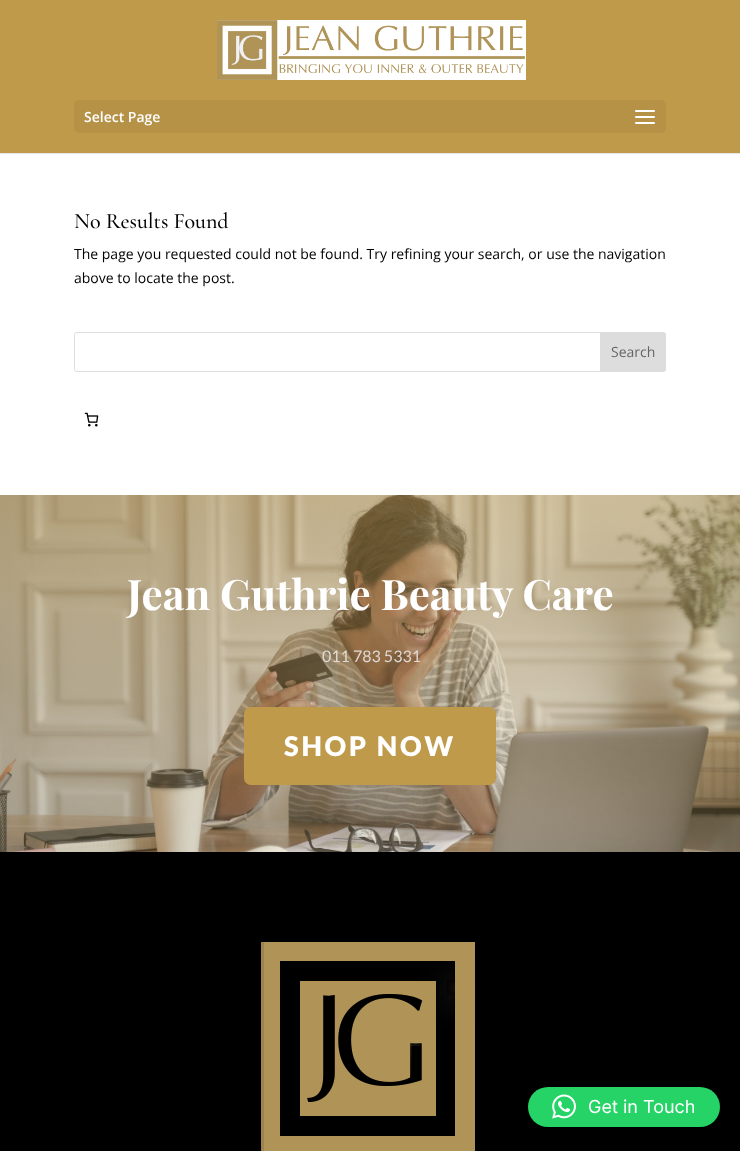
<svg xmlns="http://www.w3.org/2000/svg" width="740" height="1151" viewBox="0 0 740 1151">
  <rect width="100%" height="100%" fill="rgb(255,255,255)"/>
  <rect x="0" y="153" width="740" height="1" fill="rgb(230,230,230)"/>
  <rect x="0" y="0" width="740" height="153" fill="rgb(192,154,75)"/>
  <image x="217" y="20" width="309" height="60" href="pic1.png"/>
  <rect x="74" y="100" width="592" height="33" rx="5" fill="rgb(182,146,71)"/>
  <text x="84" y="122" font-family="Open Sans" font-size="14" font-weight="600" fill="rgb(255,255,255)">Select Page</text>
  <image x="635" y="110" width="20" height="14" href="pic2.png"/>
  <text x="74" y="228" font-family="Cormorant Garamond" font-size="22" font-weight="500" fill="rgb(0,0,0)">No Results Found</text>
  <g font-family="Open Sans" font-size="14" fill="rgb(0,0,0)">
    <text>
      <tspan x="74" y="259">The page you requested could not be found. Try refining your search, or use the navigation</tspan>
      <tspan x="74" y="283">above to locate the post.</tspan>
    </text>
  </g>
  <rect x="74.5" y="332.5" width="591" height="39" rx="2.5" fill="none" stroke="rgb(221,221,221)"/>
  <path d="M600.5 332.5H663C664.5 332.5 665.5 333.5 665.5 335V369C665.5 370.5 664.5 371.5 663 371.5H600.5Z" fill="rgb(221,221,221)" stroke="rgb(221,221,221)"/>
  <text x="611" y="357" font-family="Open Sans" font-size="14" fill="rgb(102,102,102)">Search</text>
  <image x="84" y="412" width="15" height="15" href="pic3.png"/>
  <image x="0" y="495" width="740" height="357" href="pic4.png"/>
  <text x="127" y="610" font-family="Playfair Display" font-size="42" font-weight="bold" fill="rgb(255,255,255)">Jean Guthrie Beauty Care</text>
  <text x="322" y="662" font-family="Lato" font-size="16" fill="rgb(223,218,214)">011 783 5331</text>
  <rect x="244" y="707" width="252" height="78" rx="7" fill="rgb(192,154,75)"/>
  <text x="284" y="756" font-family="Lato" font-size="27" font-weight="900" letter-spacing="2.75" fill="rgb(255,255,255)">SHOP NOW</text>
  <rect x="0" y="852" width="740" height="299" fill="rgb(0,0,0)"/>
  <image x="261" y="942" width="215" height="209" href="pic5.png"/>
  <rect x="528" y="1087" width="192" height="40" rx="20" fill="rgb(37,211,102)"/>
  <image x="552" y="1094" width="24" height="25" href="pic6.png"/>
  <text x="588" y="1113" font-family="Inter" font-size="18" fill="rgb(255,255,255)">Get in Touch</text>
</svg>
